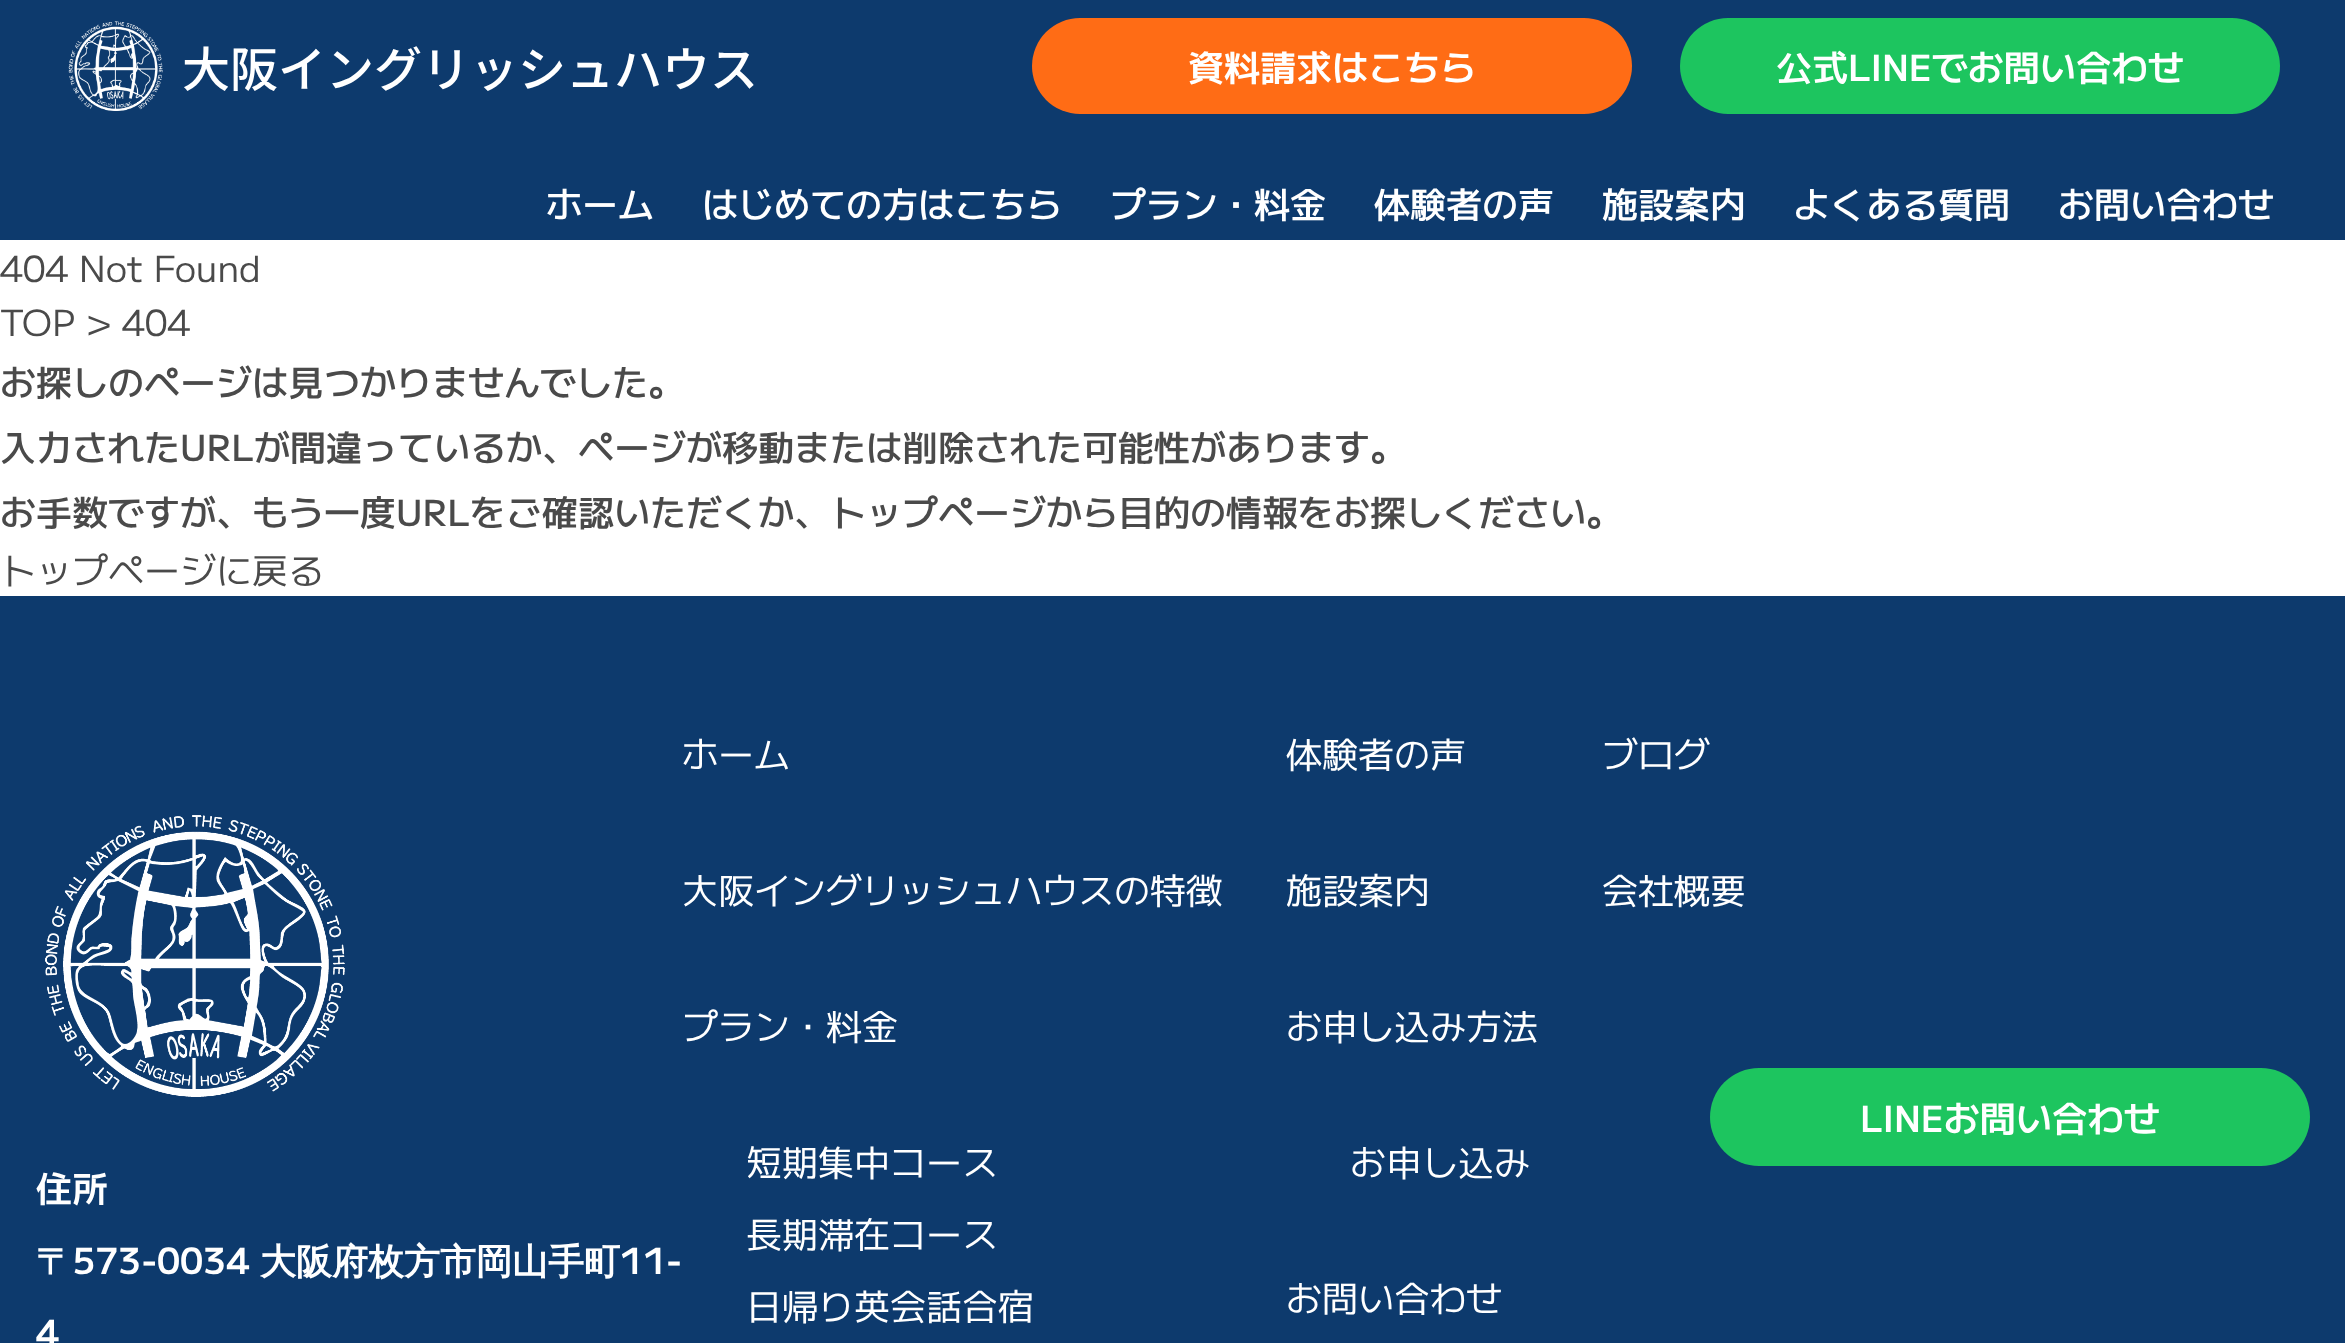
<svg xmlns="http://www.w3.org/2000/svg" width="2345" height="1343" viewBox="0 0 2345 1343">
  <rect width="100%" height="100%" fill="rgb(255,255,255)"/>
  <rect x="0" y="0" width="2345" height="240" fill="rgb(13,58,109)"/>
  <image x="68" y="21" width="95" height="90" href="pic1.png"/>
  <text x="182" y="87" font-family="Noto Sans JP" font-size="48" font-weight="500" fill="rgb(255,255,255)">大阪イングリッシュハウス</text>
  <rect x="1032" y="18" width="600" height="96" rx="48" fill="rgb(255,108,21)"/>
  <text x="1188" y="81" font-family="'M PLUS 1'" font-size="36" font-weight="600" fill="rgb(255,255,255)">資料請求はこちら</text>
  <rect x="1680" y="18" width="600" height="96" rx="48" fill="rgb(29,197,95)"/>
  <text x="1776" y="81" font-family="'M PLUS 1'" font-size="36" font-weight="600" fill="rgb(255,255,255)">公式LINEでお問い合わせ</text>
  <g font-family="'M PLUS 1'" font-size="36" font-weight="500" fill="rgb(255,255,255)">
    <text x="546" y="218">ホーム</text>
    <text x="702" y="218">はじめての方はこちら</text>
    <text x="1110" y="218">プラン・料金</text>
    <text x="1374" y="218">体験者の声</text>
    <text x="1602" y="218">施設案内</text>
    <text x="1794" y="218">よくある質問</text>
    <text x="2058" y="218">お問い合わせ</text>
  </g>
  <g font-family="'M PLUS 1'" font-size="36" fill="rgb(74,74,74)">
    <text>
      <tspan x="0" y="282">404 Not Found</tspan>
      <tspan x="0" y="336">TOP &gt; 404</tspan>
    </text>
  </g>
  <g font-family="'M PLUS 1'" font-size="36" font-weight="500" fill="rgb(74,74,74)">
    <text>
      <tspan x="0" y="396">お探しのページは見つかりませんでした。</tspan>
      <tspan x="0" y="461">入力されたURLが間違っているか、ページが移動または削除された可能性があります。</tspan>
      <tspan x="0" y="526">お手数ですが、もう一度URLをご確認いただくか、トップページから目的の情報をお探しください。</tspan>
    </text>
  </g>
  <text x="0" y="584" font-family="'M PLUS 1'" font-size="36" fill="rgb(74,74,74)">トップページに戻る</text>
  <rect x="0" y="596" width="2345" height="747" fill="rgb(13,58,109)"/>
  <g font-family="'M PLUS 1'" font-size="36" fill="rgb(255,255,255)">
    <text x="682" y="768">ホーム</text>
    <text x="1286" y="768">体験者の声</text>
    <text x="1602" y="768">ブログ</text>
    <text x="682" y="904">大阪イングリッシュハウスの特徴</text>
    <text x="1286" y="904">施設案内</text>
    <text x="1602" y="904">会社概要</text>
    <text x="682" y="1040">プラン・料金</text>
    <text x="746" y="1176">短期集中コース</text>
    <text x="746" y="1248">長期滞在コース</text>
    <text x="746" y="1320">日帰り英会話合宿</text>
    <text x="1286" y="1040">お申し込み方法</text>
    <text x="1350" y="1176">お申し込み</text>
    <text x="1286" y="1312">お問い合わせ</text>
  </g>
  <rect x="1710" y="1068" width="600" height="98" rx="49" fill="rgb(29,197,95)"/>
  <text x="1860" y="1132" font-family="'M PLUS 1'" font-size="36" font-weight="600" fill="rgb(255,255,255)">LINEお問い合わせ</text>
  <image x="45" y="815" width="300" height="282" href="pic2.png"/>
  <text x="36" y="1202" font-family="'M PLUS 1'" font-size="36" font-weight="600" fill="rgb(255,255,255)">住所</text>
  <text x="36" y="1274" font-family="WenQuanYi Zen Hei" font-size="36" font-weight="bold" fill="rgb(255,255,255)">〒</text>
  <text x="72" y="1274" font-family="'M PLUS 1'" font-size="36" font-weight="600" fill="rgb(255,255,255)">573-0034</text>
  <text x="260" y="1274" font-family="WenQuanYi Zen Hei" font-size="36" font-weight="bold" fill="rgb(255,255,255)">大阪府枚方市岡山手町</text>
  <g font-family="'M PLUS 1'" font-size="36" font-weight="600" fill="rgb(255,255,255)">
    <text x="620" y="1274">11-</text>
    <text x="36" y="1346">4</text>
  </g>
</svg>
